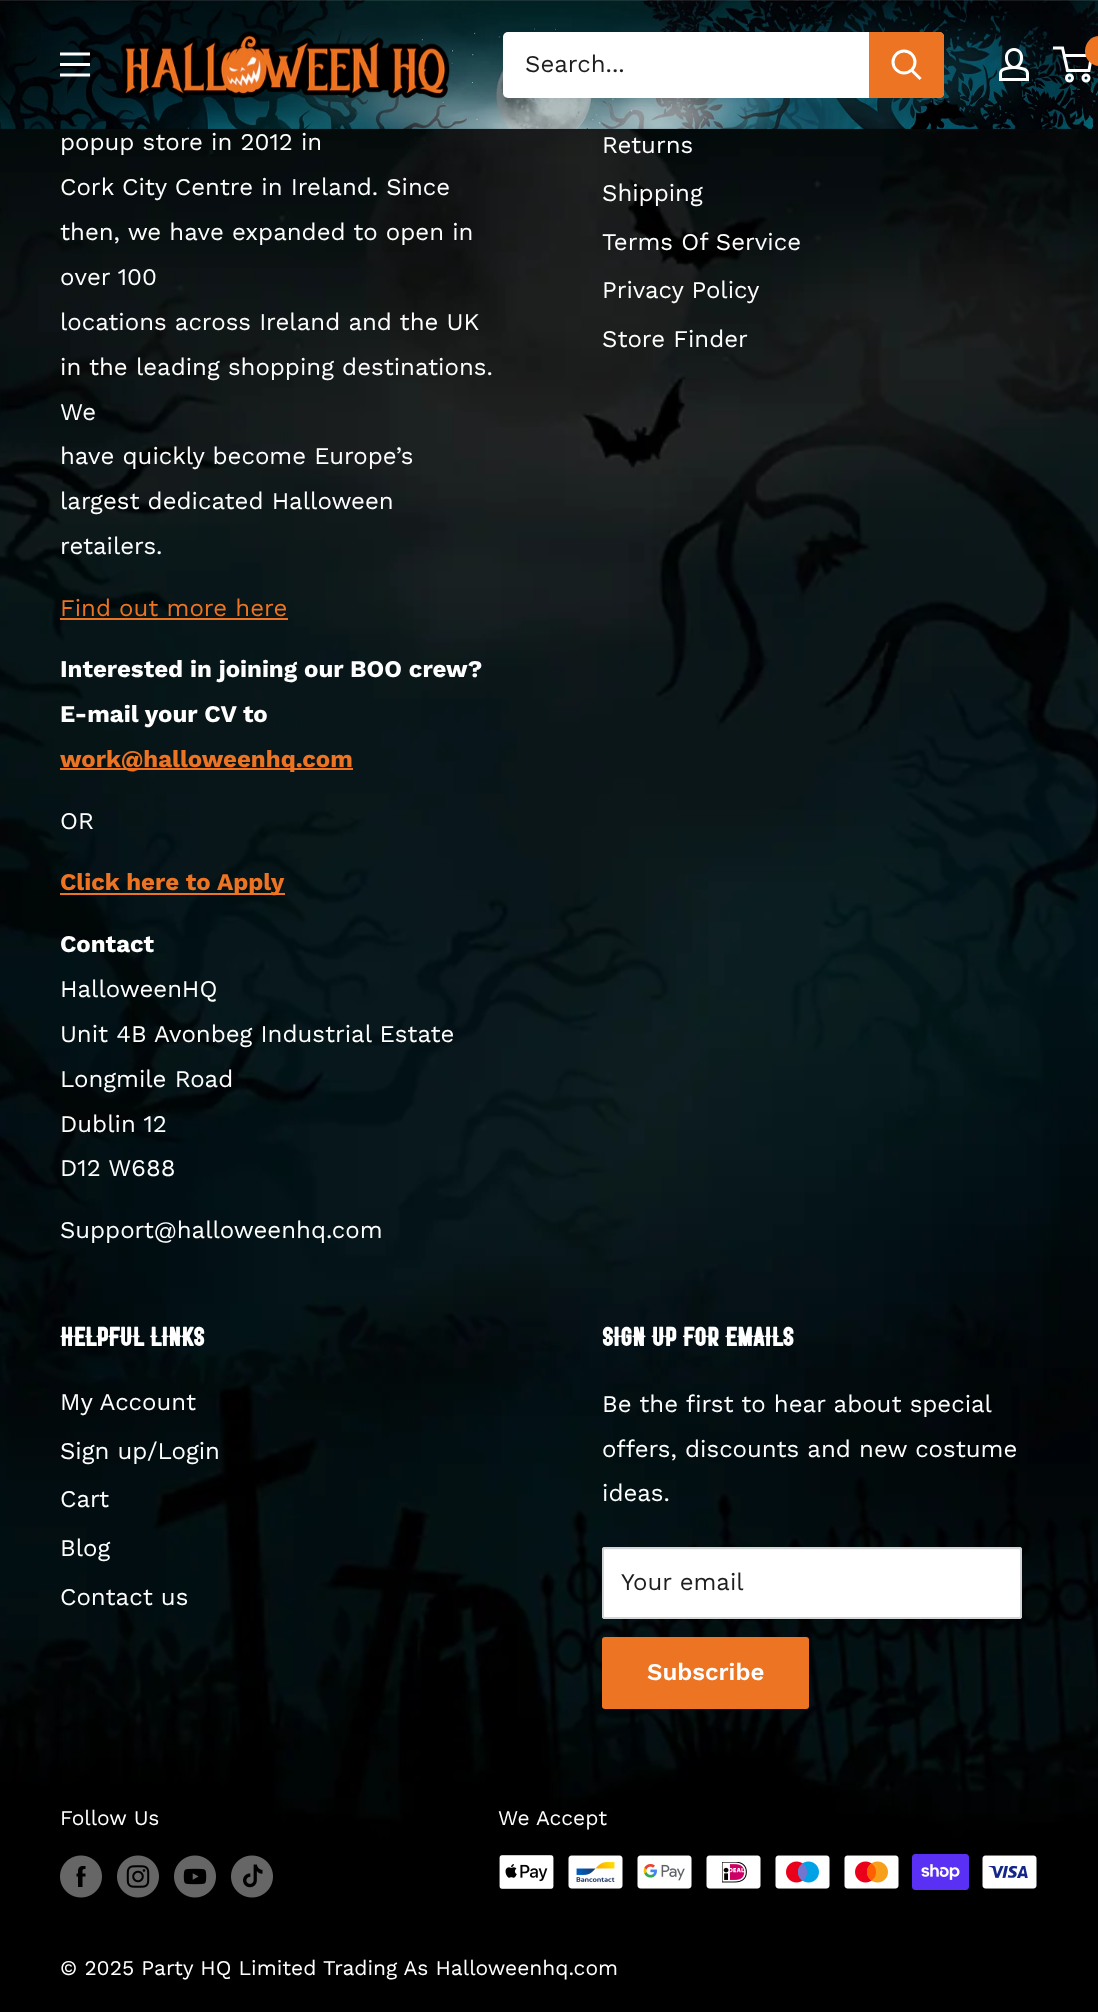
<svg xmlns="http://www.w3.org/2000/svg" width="1098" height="2012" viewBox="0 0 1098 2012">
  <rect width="100%" height="100%" fill="rgb(255,255,255)"/>
  <image x="0" y="128" width="1098" height="1884" href="pic5.png"/>
  <image x="0" y="0" width="1098" height="129" href="pic1.png"/>
  <image x="60" y="52" width="30" height="25" href="pic2.png"/>
  <image x="121" y="31" width="329" height="68" href="pic3.png"/>
  <rect x="503" y="32" width="441" height="66" rx="5" fill="rgb(255,255,255)"/>
  <text x="525" y="72" font-family="Work Sans" font-size="24" fill="rgb(30,30,30)">Search...</text>
  <path d="M869 32H939C942 32 944 34 944 37V93C944 96 942 98 939 98H869Z" fill="rgb(237,116,34)"/>
  <path d="M919.5 78L912 70.5" fill="none" stroke="rgb(255,255,255)" stroke-width="3" stroke-linecap="square"/>
  <circle cx="904" cy="62" r="11" fill="none" stroke="rgb(255,255,255)" stroke-width="3"/>
  <image x="999" y="48" width="30" height="33" href="pic4.png"/>
  <circle cx="1069.5" cy="78" r="3" fill="none" stroke="rgb(255,255,255)" stroke-width="3"/>
  <circle cx="1086" cy="78" r="3" fill="none" stroke="rgb(255,255,255)" stroke-width="3"/>
  <path d="M1064 55.5H1091.5L1089 70.5H1067.5L1062.5 48H1053" fill="none" stroke="rgb(255,255,255)" stroke-width="3"/>
  <rect x="1085" y="36" width="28" height="30" rx="15" fill="rgb(237,116,34)"/>
  <g font-family="Work Sans" font-size="24" fill="rgb(255,255,255)">
    <text>
      <tspan x="60" y="150">popup store in 2012 in</tspan>
      <tspan x="60" y="195">Cork City Centre in Ireland. Since</tspan>
      <tspan x="60" y="240">then, we have expanded to open in</tspan>
      <tspan x="60" y="285">over 100</tspan>
      <tspan x="60" y="330">locations across Ireland and the UK</tspan>
      <tspan x="60" y="375">in the leading shopping destinations.</tspan>
      <tspan x="60" y="420">We</tspan>
      <tspan x="60" y="464">have quickly become Europe’s</tspan>
      <tspan x="60" y="509">largest dedicated Halloween</tspan>
      <tspan x="60" y="554">retailers.</tspan>
    </text>
  </g>
  <text x="60" y="616" font-family="Work Sans" font-size="24" fill="rgb(237,116,34)">Find out more here</text>
  <rect x="60" y="618" width="228" height="2" fill="rgb(237,116,34)"/>
  <g font-family="Work Sans" font-size="24" font-weight="bold" fill="rgb(255,255,255)">
    <text>
      <tspan x="60" y="677">Interested in joining our BOO crew?</tspan>
      <tspan x="60" y="722">E-mail your CV to</tspan>
    </text>
  </g>
  <rect x="60" y="768" width="293" height="2" fill="rgb(237,116,34)"/>
  <text x="60" y="767" font-family="Work Sans" font-size="24" font-weight="bold" fill="rgb(237,116,34)">work@halloweenhq.com</text>
  <text x="60" y="829" font-family="Work Sans" font-size="24" fill="rgb(255,255,255)">OR</text>
  <rect x="60" y="893" width="225" height="2" fill="rgb(237,116,34)"/>
  <text x="60" y="890" font-family="Work Sans" font-size="24" font-weight="bold" fill="rgb(237,116,34)">Click here to Apply</text>
  <text x="60" y="952" font-family="Work Sans" font-size="24" font-weight="bold" fill="rgb(255,255,255)">Contact</text>
  <g font-family="Work Sans" font-size="24" fill="rgb(255,255,255)">
    <text>
      <tspan x="60" y="997">HalloweenHQ</tspan>
      <tspan x="60" y="1042">Unit 4B Avonbeg Industrial Estate</tspan>
      <tspan x="60" y="1087">Longmile Road</tspan>
      <tspan x="60" y="1132">Dublin 12</tspan>
      <tspan x="60" y="1176">D12 W688</tspan>
    </text>
    <text x="60" y="1238">Support@halloweenhq.com</text>
    <text x="602" y="153">Returns</text>
    <text x="602" y="201">Shipping</text>
    <text x="602" y="250">Terms Of Service</text>
    <text x="602" y="298">Privacy Policy</text>
    <text x="602" y="347">Store Finder</text>
  </g>
  <text x="60" y="1346" font-family="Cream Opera" font-size="27" font-weight="bold" fill="rgb(255,255,255)">HELPFUL LINKS</text>
  <g font-family="Work Sans" font-size="24" fill="rgb(255,255,255)">
    <text x="60" y="1410">My Account</text>
    <text x="60" y="1459">Sign up/Login</text>
    <text x="60" y="1507">Cart</text>
    <text x="60" y="1556">Blog</text>
    <text x="60" y="1605">Contact us</text>
  </g>
  <text x="602" y="1346" font-family="Cream Opera" font-size="27" font-weight="bold" fill="rgb(255,255,255)">SIGN UP FOR EMAILS</text>
  <g font-family="Work Sans" font-size="24" fill="rgb(255,255,255)">
    <text>
      <tspan x="602" y="1412">Be the first to hear about special</tspan>
      <tspan x="602" y="1457">offers, discounts and new costume</tspan>
      <tspan x="602" y="1501">ideas.</tspan>
    </text>
  </g>
  <rect x="602" y="1547" width="420" height="72" rx="3" fill="rgb(255,255,255)"/>
  <path d="M604 1550H1018C1019 1550 1020 1550 1020 1551C1020 1550 1020 1548 1018 1548H604L603 1549V1551Z" fill="rgb(248,248,248)"/>
  <rect x="603" y="1548" width="418" height="70" rx="2" fill="none" stroke="rgb(212,214,216)" stroke-width="2"/>
  <text x="621" y="1590" font-family="Work Sans" font-size="24" fill="rgb(30,30,30)">Your email</text>
  <rect x="602" y="1637" width="207" height="72" rx="3" fill="rgb(237,116,34)"/>
  <text x="647" y="1680" font-family="Work Sans" font-size="24" font-weight="600" fill="rgb(255,255,255)">Subscribe</text>
  <text x="60" y="1825" font-family="Work Sans" font-size="21" fill="rgb(255,255,255)">Follow Us</text>
  <image x="60" y="1855" width="42" height="43" href="pic6.png"/>
  <image x="117" y="1855" width="42" height="43" href="pic7.png"/>
  <image x="174" y="1855" width="42" height="43" href="pic8.png"/>
  <image x="231" y="1855" width="42" height="43" href="pic9.png"/>
  <text x="498" y="1825" font-family="Work Sans" font-size="21" fill="rgb(255,255,255)">We Accept</text>
  <image x="499" y="1855" width="55" height="34" href="pic10.png"/>
  <image x="568" y="1855" width="55" height="34" href="pic11.png"/>
  <image x="637" y="1855" width="55" height="34" href="pic12.png"/>
  <image x="706" y="1855" width="55" height="34" href="pic13.png"/>
  <image x="775" y="1855" width="55" height="34" href="pic14.png"/>
  <image x="844" y="1855" width="55" height="34" href="pic15.png"/>
  <image x="912" y="1854" width="57" height="36" href="pic16.png"/>
  <image x="982" y="1855" width="55" height="34" href="pic17.png"/>
  <text x="60" y="1975" font-family="Work Sans" font-size="21" fill="rgb(255,255,255)">© 2025 Party HQ Limited Trading As Halloweenhq.com</text>
</svg>
